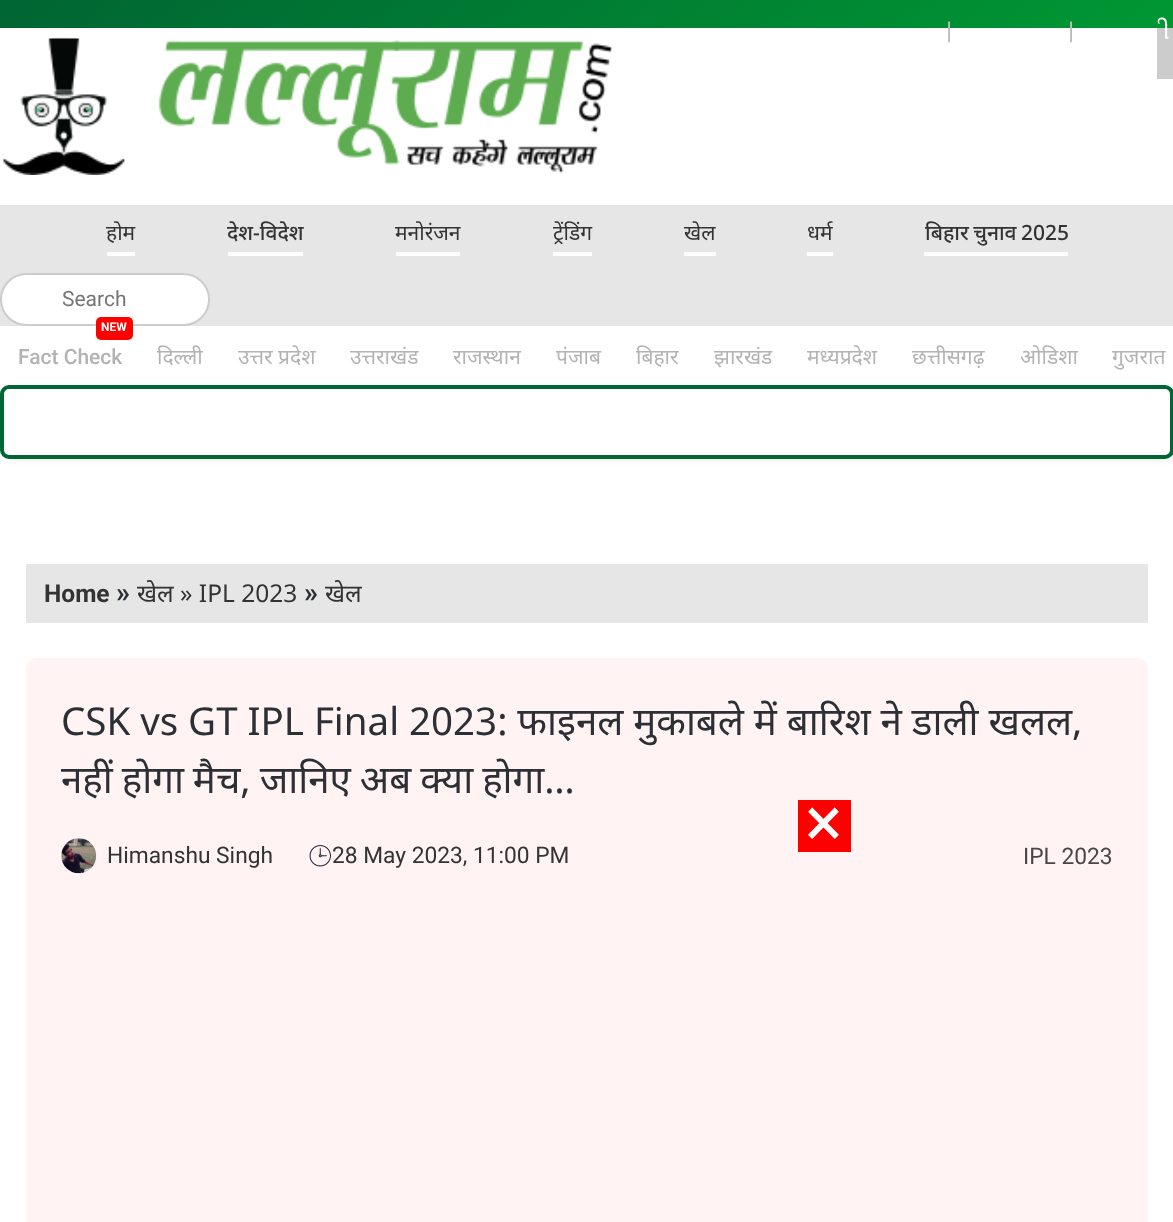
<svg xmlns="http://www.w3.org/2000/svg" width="1173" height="1222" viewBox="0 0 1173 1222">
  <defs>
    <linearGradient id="g1" gradientUnits="userSpaceOnUse" x1="352" y1="-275" x2="822" y2="327"><stop offset="0.02" stop-color="rgb(0,102,51)"/><stop offset="1" stop-color="rgb(0,153,51)"/></linearGradient>
  </defs>
  <rect width="100%" height="100%" fill="rgb(255,255,255)"/>
  <rect x="7" y="12" width="1160" height="445" fill="rgb(216,216,216)" filter="blur(5px)"/>
  <rect x="0" y="79" width="1173" height="380" fill="rgb(255,255,255)"/>
  <rect x="0" y="0" width="1173" height="28" fill="url(#g1)"/>
  <rect x="0" y="28" width="1157" height="51" fill="rgb(255,255,255)"/>
  <g font-family="Roboto" font-size="24.5" font-weight="500" fill="rgb(189,189,189)">
    <text x="946" y="39">|</text>
    <text x="1068" y="39">|</text>
  </g>
  <rect x="1157" y="28" width="16" height="51" fill="rgb(204,204,204)"/>
  <text x="1163" y="39" font-family="FreeSerif" font-size="24.5" fill="rgb(255,255,255)">ી</text>
  <image x="2" y="37" width="611" height="138" href="pic1.png"/>
  <rect x="0" y="205" width="1173" height="121" fill="rgb(230,230,230)"/>
  <text x="106" y="240" font-family="Noto Sans" font-size="21" fill="rgb(51,51,51)">होम</text>
  <rect x="107" y="252" width="28" height="4" fill="rgb(255,255,255)"/>
  <text x="227" y="240" font-family="Noto Sans" font-size="21" font-weight="500" fill="rgb(51,51,51)">देश-विदेश</text>
  <rect x="228" y="252" width="75" height="4" fill="rgb(255,255,255)"/>
  <text x="395" y="240" font-family="Noto Sans" font-size="21" fill="rgb(51,51,51)">मनोरंजन</text>
  <rect x="396" y="252" width="64" height="4" fill="rgb(255,255,255)"/>
  <text x="553" y="240" font-family="Noto Sans" font-size="21" fill="rgb(51,51,51)">ट्रेंडिंग</text>
  <rect x="553" y="252" width="39" height="4" fill="rgb(255,255,255)"/>
  <text x="684" y="240" font-family="Noto Sans" font-size="21" fill="rgb(51,51,51)">खेल</text>
  <rect x="684" y="252" width="32" height="4" fill="rgb(255,255,255)"/>
  <text x="807" y="240" font-family="Noto Sans" font-size="21" fill="rgb(51,51,51)">धर्म</text>
  <rect x="807" y="252" width="26" height="4" fill="rgb(255,255,255)"/>
  <text x="925" y="240" word-spacing="-1" font-family="Noto Sans" font-size="21" font-weight="500" fill="rgb(51,51,51)">बिहार चुनाव 2025</text>
  <rect x="924" y="252" width="144" height="4" fill="rgb(255,255,255)"/>
  <rect x="1" y="274" width="208" height="51" rx="25.5" fill="rgb(255,255,255)" stroke="rgb(204,204,204)" stroke-width="2"/>
  <text x="62" y="306" font-family="Roboto" font-size="21" fill="rgb(117,117,117)">Search</text>
  <rect x="96" y="317" width="37" height="23" rx="5" fill="rgb(255,0,0)"/>
  <text x="101" y="331" font-family="Roboto" font-size="12" font-weight="bold" fill="rgb(255,255,255)">NEW</text>
  <text x="18" y="364" font-family="Roboto" font-size="21" font-weight="500" fill="rgb(179,179,179)">Fact Check</text>
  <g font-family="Noto Sans" font-size="21" fill="rgb(179,179,179)">
    <text x="157" y="364">दिल्ली</text>
    <text x="238" y="364">उत्तर प्रदेश</text>
    <text x="350" y="364">उत्तराखंड</text>
    <text x="453" y="364">राजस्थान</text>
    <text x="556" y="364">पंजाब</text>
    <text x="636" y="364">बिहार</text>
    <text x="714" y="364">झारखंड</text>
    <text x="807" y="364">मध्यप्रदेश</text>
    <text x="912" y="364">छत्तीसगढ़</text>
    <text x="1020" y="364">ओडिशा</text>
    <text x="1112" y="364">गुजरात</text>
  </g>
  <rect x="2" y="387" width="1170" height="70" rx="7" fill="none" stroke="rgb(0,102,51)" stroke-width="4"/>
  <rect x="26" y="564" width="1122" height="59" fill="rgb(230,230,230)"/>
  <text x="44" y="602" font-family="Roboto" font-size="24.5" font-weight="bold" fill="rgb(51,51,51)">Home</text>
  <text x="116" y="602" font-family="Roboto" font-size="28" font-weight="bold" fill="rgb(44,47,52)">»</text>
  <text x="137" y="602" font-family="Noto Sans" font-size="24.5" fill="rgb(51,51,51)">खेल » IPL 2023</text>
  <text x="304" y="602" font-family="Roboto" font-size="28" font-weight="bold" fill="rgb(44,47,52)">»</text>
  <text x="325" y="602" font-family="Noto Sans" font-size="24.5" fill="rgb(51,51,51)">खेल</text>
  <rect x="26" y="658" width="1122" height="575" rx="11" fill="rgb(255,243,243)"/>
  <g font-family="Noto Sans" font-size="38.5" fill="rgb(44,47,52)">
    <text>
      <tspan x="61" y="735" word-spacing="-0.1">CSK vs GT IPL Final 2023: फाइनल मुकाबले में बारिश ने डाली खलल,</tspan>
      <tspan x="61" y="793" word-spacing="-1">नहीं होगा मैच, जानिए अब क्या होगा…</tspan>
    </text>
  </g>
  <image x="61" y="838" width="36" height="36" href="pic2.png"/>
  <text x="107" y="863" font-family="Roboto" font-size="22.75" fill="rgb(51,51,51)">Himanshu Singh</text>
  <image x="309" y="845" width="22" height="22" href="pic3.png"/>
  <text x="332" y="863" font-family="Roboto" font-size="22.75" fill="rgb(51,51,51)">28 May 2023, 11:00 PM</text>
  <text x="1023" y="864" font-family="Roboto" font-size="22.75" fill="rgb(75,70,70)">IPL 2023</text>
  <rect x="798" y="800" width="53" height="52" fill="rgb(255,0,0)"/>
  <text x="805" y="846" font-family="Roboto" font-size="70" fill="rgb(255,255,255)">×</text>
</svg>
